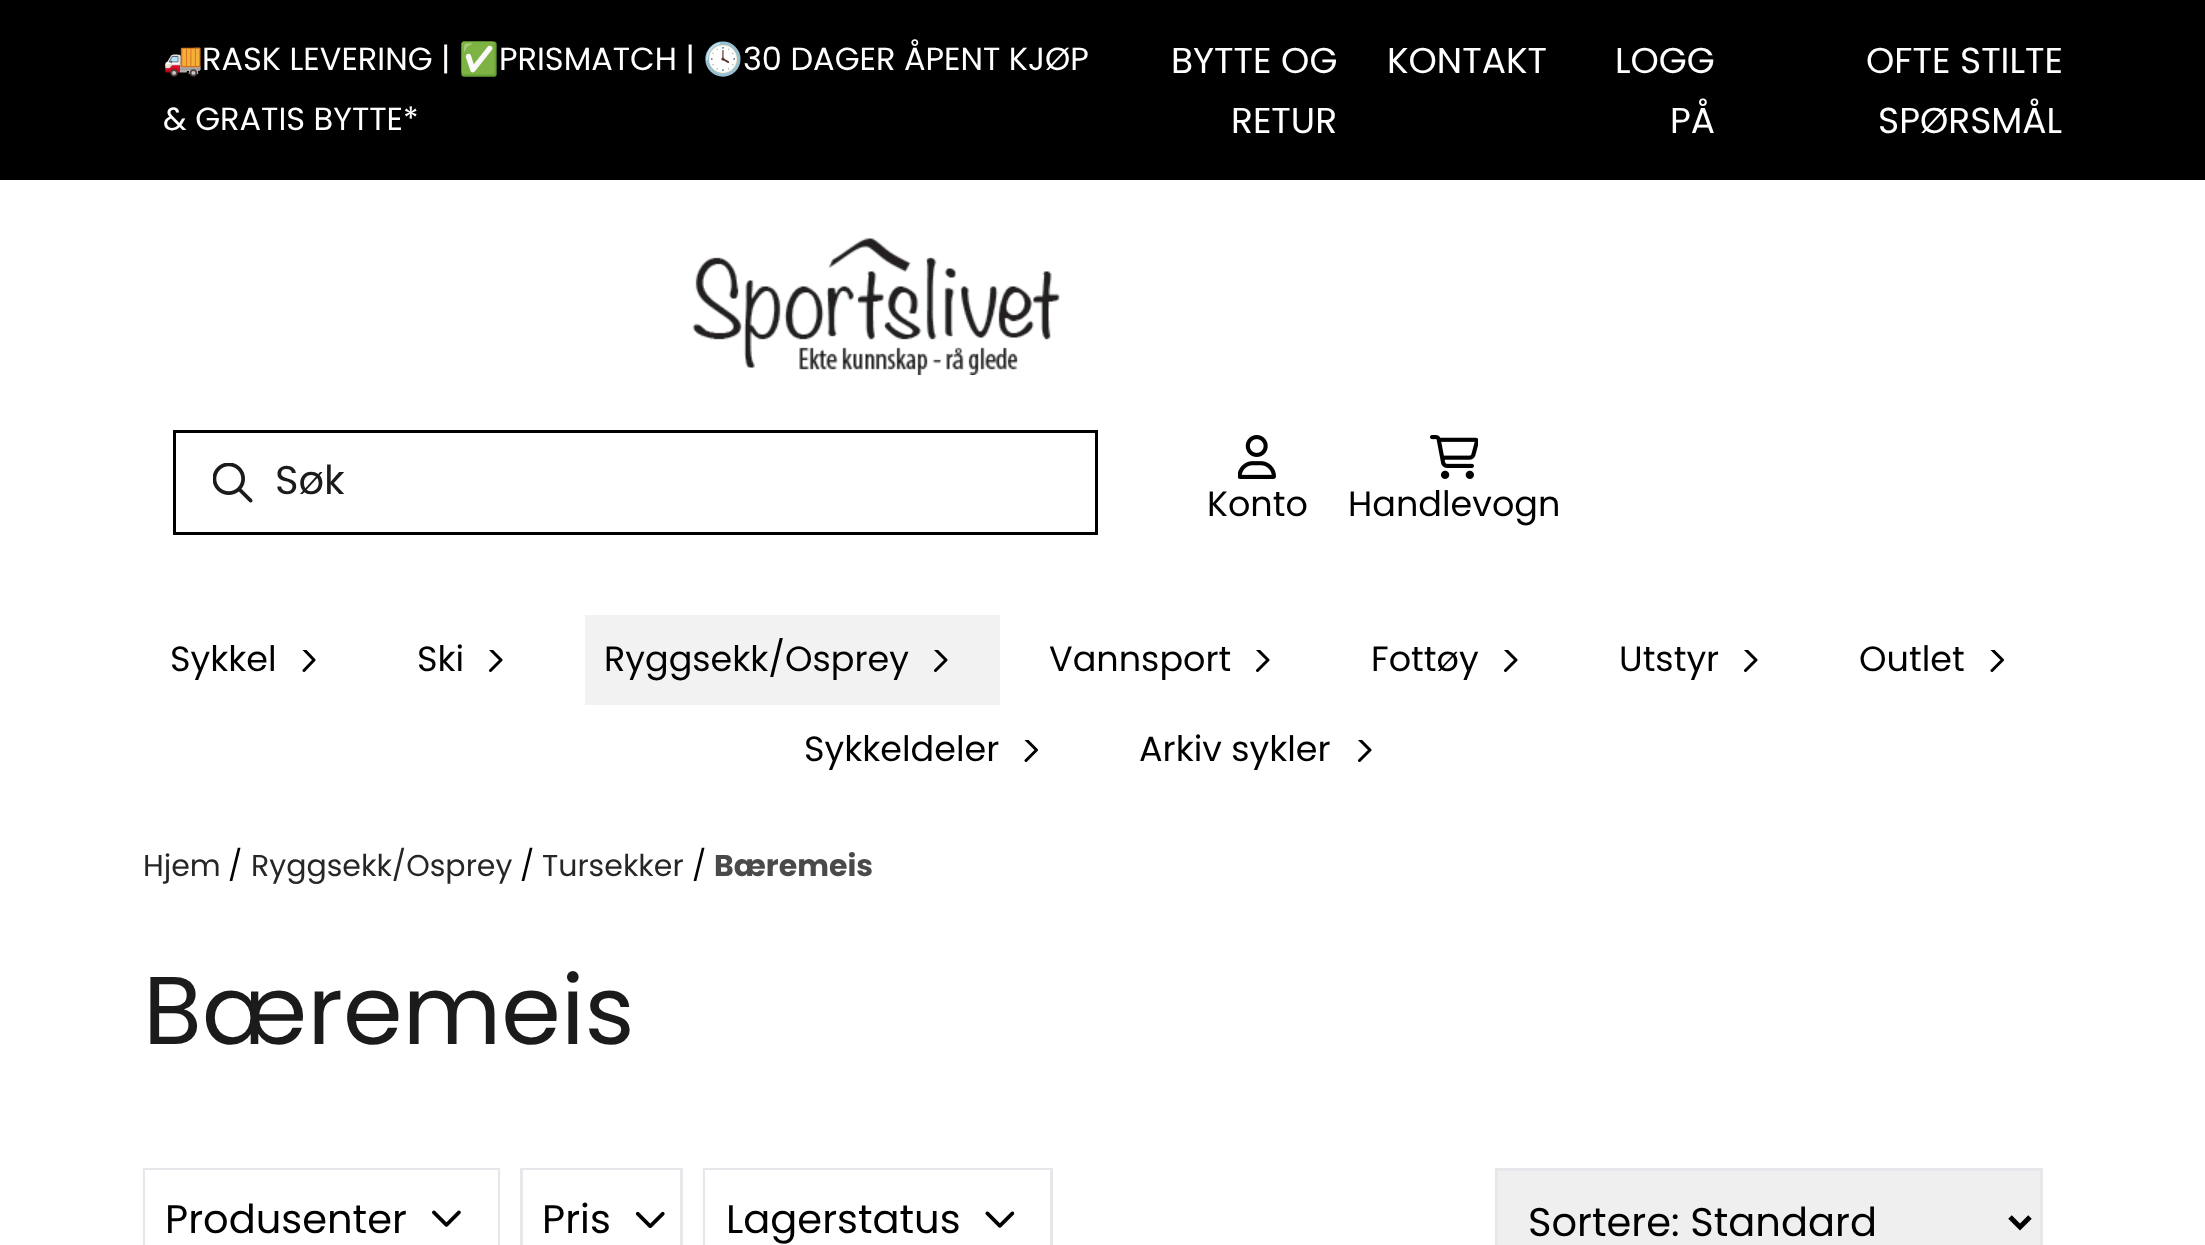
<svg xmlns="http://www.w3.org/2000/svg" width="2205" height="1245" viewBox="0 0 2205 1245">
  <defs>
    <clipPath id="clip1"><rect x="298" y="650" width="30" height="30"/></clipPath>
    <clipPath id="clip2"><rect x="485" y="650" width="30" height="30"/></clipPath>
    <clipPath id="clip3"><rect x="930" y="650" width="30" height="30"/></clipPath>
    <clipPath id="clip4"><rect x="1253" y="650" width="30" height="30"/></clipPath>
    <clipPath id="clip5"><rect x="1500" y="650" width="30" height="30"/></clipPath>
    <clipPath id="clip6"><rect x="1740" y="650" width="30" height="30"/></clipPath>
    <clipPath id="clip7"><rect x="1985" y="650" width="30" height="30"/></clipPath>
    <clipPath id="clip8"><rect x="1020" y="740" width="30" height="30"/></clipPath>
    <clipPath id="clip9"><rect x="1350" y="740" width="30" height="30"/></clipPath>
  </defs>
  <rect width="100%" height="100%" fill="rgb(255,255,255)"/>
  <rect x="0" y="0" width="2205" height="180" fill="rgb(0,0,0)"/>
  <text x="163" y="70" font-family="Noto Color Emoji" font-size="32" fill="rgb(255,255,255)">🚚</text>
  <text x="202" y="70" font-family="Poppins" font-size="32" fill="rgb(255,255,255)">RASK LEVERING |</text>
  <text x="459" y="70" font-family="Noto Color Emoji" font-size="32" fill="rgb(255,255,255)">✅</text>
  <text x="499" y="70" font-family="Poppins" font-size="32" fill="rgb(255,255,255)">PRISMATCH |</text>
  <text x="703" y="70" font-family="Noto Color Emoji" font-size="32" fill="rgb(255,255,255)">🕓</text>
  <g font-family="Poppins" font-size="32" fill="rgb(255,255,255)">
    <text x="743" y="70">30 DAGER ÅPENT KJØP</text>
    <text x="163" y="130">&amp; GRATIS BYTTE*</text>
  </g>
  <g font-family="Poppins" font-size="36" fill="rgb(255,255,255)">
    <text x="1171" y="73">BYTTE OG</text>
    <text x="1231" y="133">RETUR</text>
    <text x="1387" y="73">KONTAKT</text>
    <text x="1615" y="73">LOGG</text>
    <text x="1670" y="133">PÅ</text>
    <text x="1866" y="73">OFTE STILTE</text>
    <text x="1878" y="133">SPØRSMÅL</text>
  </g>
  <image x="692" y="238" width="368" height="137" href="pic1.png"/>
  <rect x="174.5" y="431.5" width="922" height="102" fill="none" stroke="rgb(0,0,0)" stroke-width="3"/>
  <image x="213" y="463" width="40" height="40" href="pic2.png"/>
  <text x="275" y="494" font-family="Poppins" font-size="40" fill="rgb(27,27,27)">Søk</text>
  <image x="1238" y="435" width="38" height="44" href="pic3.png"/>
  <text x="1207" y="516" font-family="Poppins" font-size="35" fill="rgb(0,0,0)">Konto</text>
  <image x="1430" y="435" width="48" height="44" href="pic4.png"/>
  <g font-family="Poppins" font-size="35" fill="rgb(0,0,0)">
    <text x="1348" y="516">Handlevogn</text>
    <text x="170" y="671">Sykkel</text>
  </g>
  <g clip-path="url(#clip1)">
    <path d="M304 649.5L314 660L304 670.5" fill="none" stroke="rgb(0,0,0)" stroke-width="3" stroke-linecap="round" stroke-linejoin="round"/>
  </g>
  <text x="417" y="671" font-family="Poppins" font-size="35" fill="rgb(0,0,0)">Ski</text>
  <g clip-path="url(#clip2)">
    <path d="M490.5 649.5L501 660L490.5 670.5" fill="none" stroke="rgb(0,0,0)" stroke-width="3" stroke-linecap="round" stroke-linejoin="round"/>
  </g>
  <rect x="585" y="615" width="415" height="90" fill="rgb(242,242,242)"/>
  <text x="604" y="671" font-family="Poppins" font-size="35" fill="rgb(0,0,0)">Ryggsekk/Osprey</text>
  <g clip-path="url(#clip3)">
    <path d="M935.5 649.5L946 660L935.5 670.5" fill="none" stroke="rgb(0,0,0)" stroke-width="3" stroke-linecap="round" stroke-linejoin="round"/>
  </g>
  <text x="1049" y="671" font-family="Poppins" font-size="35" fill="rgb(0,0,0)">Vannsport</text>
  <g clip-path="url(#clip4)">
    <path d="M1257.5 649.5L1268 660L1257.5 670.5" fill="none" stroke="rgb(0,0,0)" stroke-width="3" stroke-linecap="round" stroke-linejoin="round"/>
  </g>
  <text x="1371" y="671" font-family="Poppins" font-size="35" fill="rgb(0,0,0)">Fottøy</text>
  <g clip-path="url(#clip5)">
    <path d="M1505.5 649.5L1516 660L1505.5 670.5" fill="none" stroke="rgb(0,0,0)" stroke-width="3" stroke-linecap="round" stroke-linejoin="round"/>
  </g>
  <text x="1619" y="671" font-family="Poppins" font-size="35" fill="rgb(0,0,0)">Utstyr</text>
  <g clip-path="url(#clip6)">
    <path d="M1745.5 649.5L1756 660L1745.5 670.5" fill="none" stroke="rgb(0,0,0)" stroke-width="3" stroke-linecap="round" stroke-linejoin="round"/>
  </g>
  <text x="1859" y="671" font-family="Poppins" font-size="35" fill="rgb(0,0,0)">Outlet</text>
  <g clip-path="url(#clip7)">
    <path d="M1992 649.5L2002.5 660L1992 670.5" fill="none" stroke="rgb(0,0,0)" stroke-width="3" stroke-linecap="round" stroke-linejoin="round"/>
  </g>
  <text x="804" y="761" font-family="Poppins" font-size="35" fill="rgb(0,0,0)">Sykkeldeler</text>
  <g clip-path="url(#clip8)">
    <path d="M1026 739.5L1036.5 750L1026 760.5" fill="none" stroke="rgb(0,0,0)" stroke-width="3" stroke-linecap="round" stroke-linejoin="round"/>
  </g>
  <text x="1139" y="761" font-family="Poppins" font-size="35" fill="rgb(0,0,0)">Arkiv sykler</text>
  <g clip-path="url(#clip9)">
    <path d="M1359.5 739.5L1370 750L1359.5 760.5" fill="none" stroke="rgb(0,0,0)" stroke-width="3" stroke-linecap="round" stroke-linejoin="round"/>
  </g>
  <text x="143" y="876" font-family="Poppins" font-size="30" fill="rgb(38,38,38)">Hjem</text>
  <text x="228" y="876" font-family="Poppins" font-size="30" fill="rgb(0,0,0)">/</text>
  <text x="251" y="876" font-family="Poppins" font-size="30" fill="rgb(38,38,38)">Ryggsekk/Osprey</text>
  <text x="520" y="876" font-family="Poppins" font-size="30" fill="rgb(0,0,0)">/</text>
  <text x="542" y="876" font-family="Poppins" font-size="30" fill="rgb(38,38,38)">Tursekker</text>
  <text x="692" y="876" font-family="Poppins" font-size="30" fill="rgb(0,0,0)">/</text>
  <text x="714" y="876" font-family="Poppins" font-size="30" font-weight="bold" fill="rgb(74,74,74)">Bæremeis</text>
  <text x="143" y="1044" font-family="Poppins" font-size="96" fill="rgb(27,27,27)">Bæremeis</text>
  <rect x="144.5" y="1169.5" width="354" height="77" fill="none" stroke="rgb(229,231,235)" stroke-width="3"/>
  <rect x="145" y="1170" width="353" height="75" fill="rgb(255,255,255)"/>
  <text x="165" y="1233" font-family="Poppins" font-size="40" fill="rgb(0,0,0)">Produsenter</text>
  <image x="432" y="1210" width="29" height="17" href="pic5.png"/>
  <rect x="521.5" y="1169.5" width="160" height="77" fill="none" stroke="rgb(229,231,235)" stroke-width="3"/>
  <rect x="523" y="1170" width="157" height="1" fill="rgb(255,255,255)"/>
  <text x="542" y="1233" font-family="Poppins" font-size="40" fill="rgb(0,0,0)">Pris</text>
  <image x="635" y="1211" width="30" height="18" href="pic6.png"/>
  <rect x="704.5" y="1169.5" width="347" height="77" fill="none" stroke="rgb(229,231,235)" stroke-width="3"/>
  <rect x="705" y="1170" width="345" height="75" fill="rgb(255,255,255)"/>
  <text x="726" y="1233" font-family="Poppins" font-size="40" fill="rgb(0,0,0)">Lagerstatus</text>
  <image x="985" y="1211" width="30" height="17" href="pic7.png"/>
  <rect x="1496.5" y="1169.5" width="545" height="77" fill="rgb(239,239,239)" stroke="rgb(229,231,235)" stroke-width="3"/>
  <path d="M2010 1217L2020 1227L2030 1217" fill="none" stroke="rgb(0,0,0)" stroke-width="5"/>
  <text x="1528" y="1236" font-family="Poppins" font-size="40" fill="rgb(0,0,0)">Sortere: Standard</text>
</svg>
